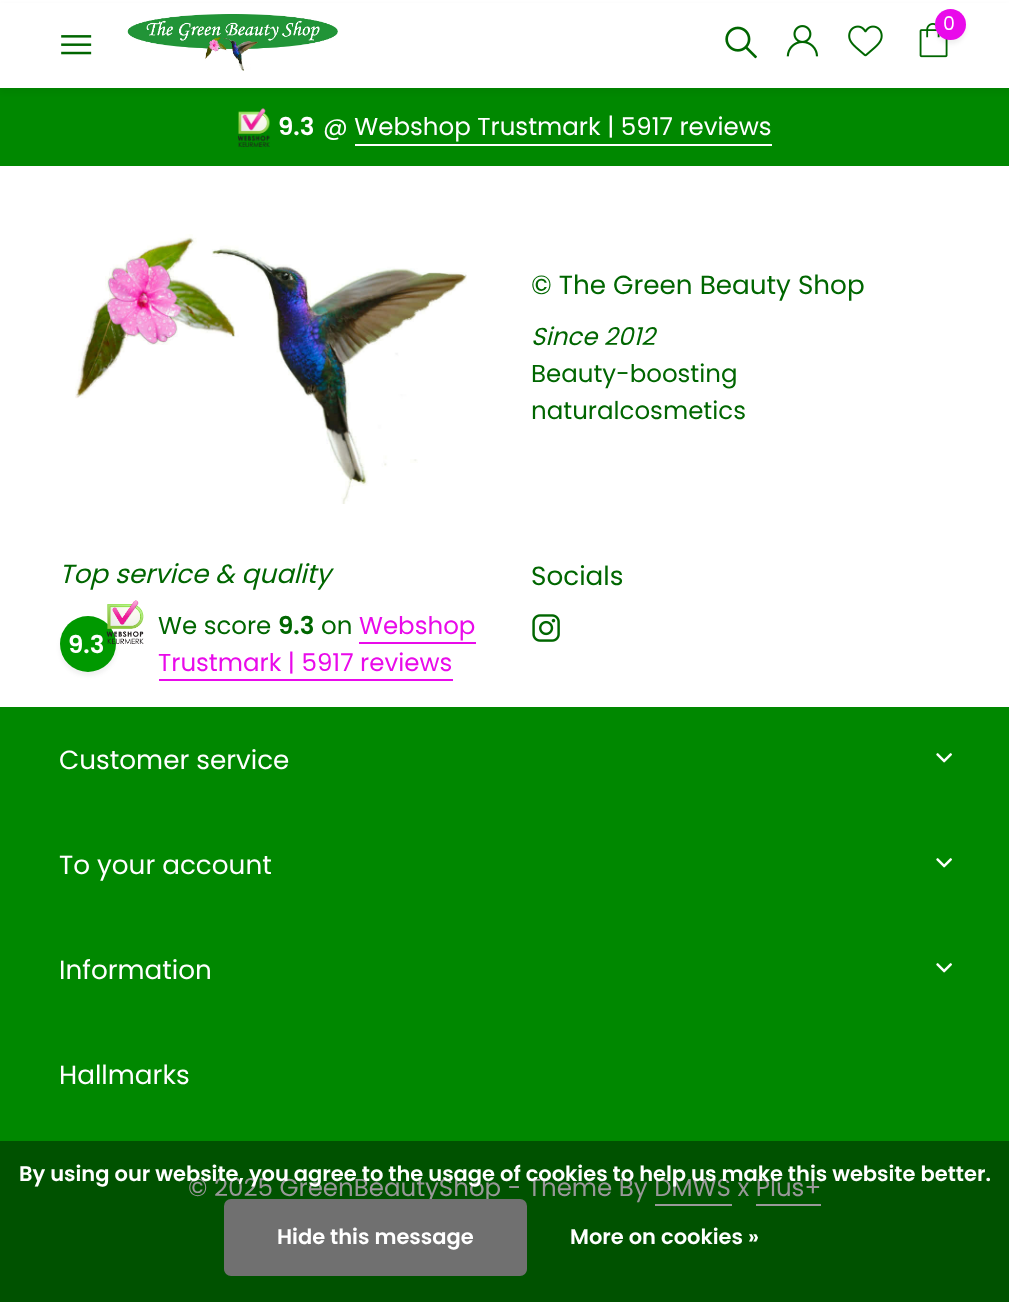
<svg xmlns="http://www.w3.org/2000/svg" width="1009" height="1302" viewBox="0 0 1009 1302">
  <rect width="100%" height="100%" fill="rgb(255,255,255)"/>
  <rect x="0" y="88" width="1009" height="78" fill="rgb(0,136,0)"/>
  <rect x="0" y="5" width="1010" height="88" fill="rgba(0,0,0,0.04)" filter="blur(2.5px)"/>
  <rect x="0" y="3" width="1009" height="85" fill="rgb(255,255,255)"/>
  <image x="127" y="14" width="211" height="57" href="pic1.png"/>
  <image x="919" y="23" width="29" height="35" href="pic2.png"/>
  <rect x="935" y="12" width="31" height="32" rx="15.5" fill="rgba(0,0,0,0.06)" filter="blur(2px)"/>
  <circle cx="950.5" cy="24.5" r="15.5" fill="rgb(233,10,234)"/>
  <text x="943" y="30" font-family="Poppins" font-size="19" fill="rgb(255,255,255)">0</text>
  <image x="786" y="25" width="33" height="32" href="pic3.png"/>
  <image x="848" y="25" width="35" height="32" href="pic4.png"/>
  <image x="61" y="35" width="31" height="20" href="pic5.png"/>
  <image x="725" y="26" width="32" height="33" href="pic6.png"/>
  <image x="238" y="108" width="32" height="39" href="pic7.png"/>
  <text x="278" y="135" font-family="Poppins" font-size="24.5" font-weight="600" fill="rgb(255,255,255)">9.3</text>
  <text x="323" y="135" font-family="Poppins" font-size="24.5" fill="rgb(255,255,255)">@ Webshop Trustmark | 5917 reviews</text>
  <rect x="355" y="144" width="417" height="2" fill="rgb(255,255,255)"/>
  <image x="75" y="234" width="392" height="270" href="pic8.png"/>
  <text x="531" y="294" font-family="Poppins" font-size="26.25" fill="rgb(0,102,0)">© The Green Beauty Shop</text>
  <text x="531" y="345" font-family="Poppins" font-size="24.5" font-style="italic" fill="rgb(0,102,0)">Since 2012</text>
  <g font-family="Poppins" font-size="24.5" fill="rgb(0,102,0)">
    <text>
      <tspan x="531" y="382">Beauty-boosting</tspan>
      <tspan x="531" y="419">naturalcosmetics</tspan>
    </text>
  </g>
  <text x="59" y="583" font-family="Poppins" font-size="26.25" font-style="italic" fill="rgb(0,102,0)">Top service &amp; quality</text>
  <rect x="60" y="620" width="56" height="56" rx="28" fill="rgba(0,0,0,0.06)" filter="blur(2px)"/>
  <circle cx="88" cy="644" r="28" fill="rgb(0,153,0)"/>
  <text x="68" y="653" font-family="Poppins" font-size="24.5" font-weight="600" fill="rgb(255,255,255)">9.3</text>
  <image x="106" y="600" width="38" height="44" href="pic9.png"/>
  <text x="158" y="634" font-family="Poppins" font-size="24.5" fill="rgb(0,102,0)">We score</text>
  <text x="278" y="634" font-family="Poppins" font-size="24.5" font-weight="600" fill="rgb(0,102,0)">9.3</text>
  <text x="321" y="634" font-family="Poppins" font-size="24.5" fill="rgb(0,102,0)">on</text>
  <text x="359" y="634" font-family="Poppins" font-size="24.5" fill="rgb(233,10,234)">Webshop</text>
  <rect x="359" y="642" width="117" height="2" fill="rgb(233,10,234)"/>
  <text x="158" y="671" font-family="Poppins" font-size="24.5" fill="rgb(233,10,234)">Trustmark | 5917 reviews</text>
  <rect x="159" y="679" width="294" height="2" fill="rgb(233,10,234)"/>
  <text x="531" y="585" font-family="Poppins" font-size="26.25" fill="rgb(0,102,0)">Socials</text>
  <image x="532" y="614" width="28" height="28" href="pic10.png"/>
  <rect x="0" y="707" width="1009" height="434" fill="rgb(0,136,0)"/>
  <rect x="0" y="1141" width="1009" height="161" fill="rgb(0,82,0)"/>
  <text x="59" y="769" font-family="Poppins" font-size="26.25" fill="rgb(255,255,255)">Customer service</text>
  <image x="936" y="753" width="16" height="10" href="pic11.png"/>
  <text x="59" y="874" font-family="Poppins" font-size="26.25" fill="rgb(255,255,255)">To your account</text>
  <image x="936" y="858" width="16" height="10" href="pic11.png"/>
  <text x="59" y="979" font-family="Poppins" font-size="26.25" fill="rgb(255,255,255)">Information</text>
  <image x="936" y="963" width="16" height="10" href="pic11.png"/>
  <text x="59" y="1084" font-family="Poppins" font-size="26.25" fill="rgb(255,255,255)">Hallmarks</text>
  <text x="188" y="1196" font-family="Poppins" font-size="24.5" fill="rgb(153,153,153)">© 2025 GreenBeautyShop - Theme By DMWS x Plus+</text>
  <rect x="655" y="1204" width="77" height="2" fill="rgb(153,153,153)"/>
  <rect x="756" y="1204" width="65" height="2" fill="rgb(153,153,153)"/>
  <text x="19" y="1181" font-family="Poppins" font-size="21" font-weight="600" fill="rgb(255,255,255)">By using our website, you agree to the usage of cookies to help us make this website better.</text>
  <rect x="224" y="1199" width="303" height="77" rx="7" fill="rgb(112,112,112)"/>
  <g font-family="Poppins" font-size="21" font-weight="600" fill="rgb(255,255,255)">
    <text x="277" y="1244">Hide this message</text>
    <text x="570" y="1244">More on cookies »</text>
  </g>
</svg>
